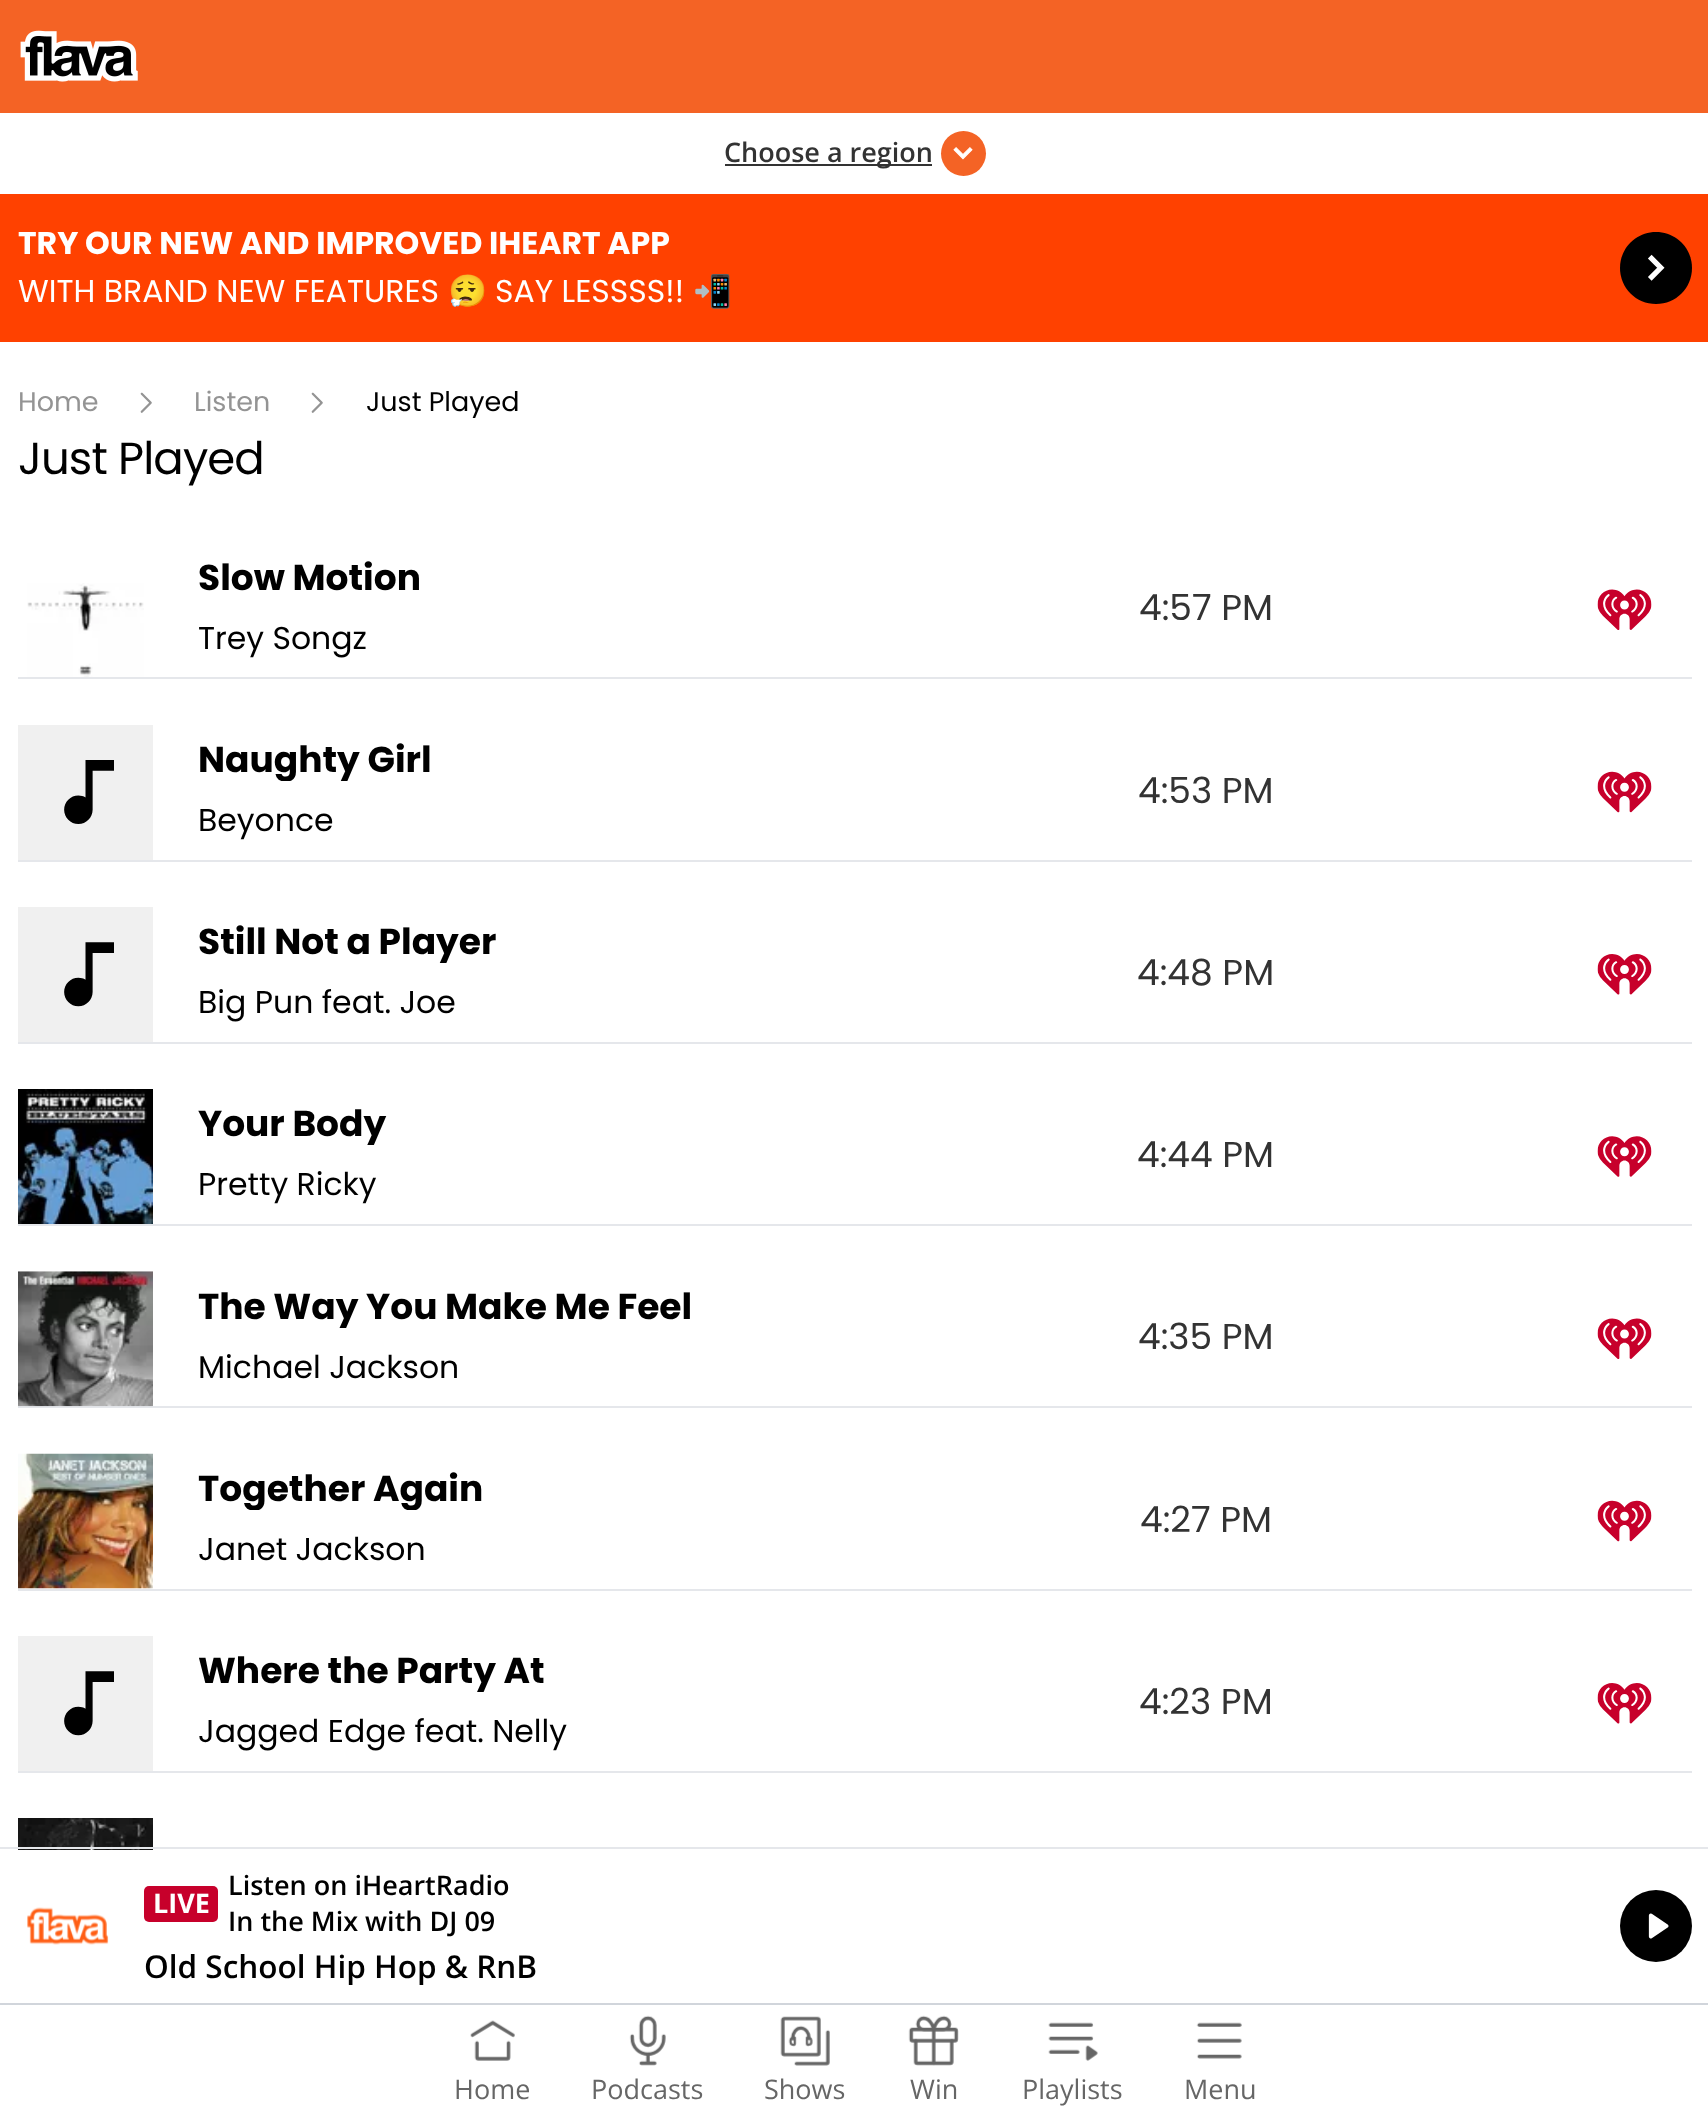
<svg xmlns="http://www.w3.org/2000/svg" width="1708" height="2117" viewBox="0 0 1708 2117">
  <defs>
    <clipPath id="clip1"><rect x="198" y="738" width="315" height="43"/></clipPath>
    <clipPath id="clip2"><rect x="198" y="920" width="315" height="43"/></clipPath>
    <clipPath id="clip3"><rect x="198" y="1103" width="315" height="42"/></clipPath>
    <clipPath id="clip4"><rect x="198" y="1285" width="495" height="43"/></clipPath>
    <clipPath id="clip5"><rect x="198" y="1467" width="315" height="43"/></clipPath>
    <clipPath id="clip6"><rect x="198" y="1649" width="369" height="43"/></clipPath>
    <clipPath id="clip7"><rect x="144" y="1949" width="1458" height="36"/></clipPath>
  </defs>
  <rect width="100%" height="100%" fill="rgb(255,255,255)"/>
  <rect x="0" y="0" width="1708" height="113" fill="rgb(244,99,37)"/>
  <image x="20" y="30" width="118" height="52" href="pic1.png"/>
  <rect x="725" y="164" width="207" height="2" fill="rgb(51,51,51)"/>
  <text x="724" y="162" font-family="Open Sans" font-size="27" font-weight="600" fill="rgb(51,51,51)">Choose a region</text>
  <circle cx="963.5" cy="153.5" r="22.5" fill="rgb(244,99,37)"/>
  <image x="953" y="147" width="20" height="13" href="pic2.png"/>
  <rect x="0" y="194" width="1708" height="148" fill="rgb(255,65,0)"/>
  <text x="18" y="254" font-family="Poppins" font-size="31.5" font-weight="bold" fill="rgb(255,255,255)">TRY OUR NEW AND IMPROVED IHEART APP</text>
  <text x="18" y="302" font-family="Poppins" font-size="31.5" fill="rgb(255,255,255)">WITH BRAND NEW FEATURES</text>
  <text x="448" y="302" font-family="Noto Color Emoji" font-size="31.5" fill="rgb(255,255,255)">😮‍💨</text>
  <text x="495" y="302" font-family="Poppins" font-size="31.5" fill="rgb(255,255,255)">SAY LESSSS!!</text>
  <text x="693" y="302" font-family="Noto Color Emoji" font-size="31.5" fill="rgb(255,255,255)">📲</text>
  <path d="M1620 268C1620 248 1636 232 1656 232C1676 232 1692 248 1692 268C1692 288 1676 304 1656 304C1636 304 1620 288 1620 268Z" fill="rgb(0,0,0)"/>
  <image x="1648" y="254" width="17" height="27" href="pic3.png"/>
  <text x="18" y="411" font-family="Poppins" font-size="27" fill="rgb(148,148,148)">Home</text>
  <image x="140" y="392" width="12" height="21" href="pic4.png"/>
  <text x="194" y="411" font-family="Poppins" font-size="27" fill="rgb(148,148,148)">Listen</text>
  <image x="311" y="392" width="12" height="21" href="pic4.png"/>
  <text x="366" y="411" font-family="Poppins" font-size="27" fill="rgb(0,0,0)">Just Played</text>
  <text x="18" y="474" font-family="Poppins" font-size="45" letter-spacing="-0.9" fill="rgb(0,0,0)">Just Played</text>
  <rect x="18" y="677" width="1674" height="2" fill="rgb(229,231,235)"/>
  <image x="27" y="583" width="117" height="94" href="pic5.png"/>
  <text x="198" y="590" font-family="Poppins" font-size="36" font-weight="bold" fill="rgb(0,0,0)">Slow Motion</text>
  <text x="198" y="649" font-family="Poppins" font-size="31.5" fill="rgb(0,0,0)">Trey Songz</text>
  <text x="1139" y="620" font-family="Poppins" font-size="36" fill="rgb(51,51,51)">4:57 PM</text>
  <image x="1597" y="589" width="55" height="41" href="pic6.png"/>
  <rect x="18" y="860" width="1674" height="2" fill="rgb(229,231,235)"/>
  <rect x="18" y="725" width="135" height="135" fill="rgb(240,240,240)"/>
  <image x="64" y="760" width="50" height="64" href="pic7.png"/>
  <g clip-path="url(#clip1)">
    <text x="198" y="772" font-family="Poppins" font-size="36" font-weight="bold" fill="rgb(0,0,0)">Naughty Girl</text>
  </g>
  <text x="198" y="831" font-family="Poppins" font-size="31.5" fill="rgb(0,0,0)">Beyonce</text>
  <text x="1138" y="803" font-family="Poppins" font-size="36" fill="rgb(51,51,51)">4:53 PM</text>
  <image x="1597" y="771" width="55" height="42" href="pic8.png"/>
  <rect x="18" y="1042" width="1674" height="2" fill="rgb(229,231,235)"/>
  <rect x="18" y="907" width="135" height="135" fill="rgb(240,240,240)"/>
  <image x="64" y="942" width="50" height="65" href="pic9.png"/>
  <g clip-path="url(#clip2)">
    <text x="198" y="954" font-family="Poppins" font-size="36" font-weight="bold" fill="rgb(0,0,0)">Still Not a Player</text>
  </g>
  <text x="198" y="1013" font-family="Poppins" font-size="31.5" fill="rgb(0,0,0)">Big Pun feat. Joe</text>
  <text x="1137" y="985" font-family="Poppins" font-size="36" fill="rgb(51,51,51)">4:48 PM</text>
  <image x="1597" y="954" width="55" height="41" href="pic10.png"/>
  <rect x="18" y="1224" width="1674" height="2" fill="rgb(229,231,235)"/>
  <image x="18" y="1089" width="135" height="135" href="pic11.png"/>
  <g clip-path="url(#clip3)">
    <text x="198" y="1136" font-family="Poppins" font-size="36" font-weight="bold" fill="rgb(0,0,0)">Your Body</text>
  </g>
  <text x="198" y="1195" font-family="Poppins" font-size="31.5" fill="rgb(0,0,0)">Pretty Ricky</text>
  <text x="1137" y="1167" font-family="Poppins" font-size="36" fill="rgb(51,51,51)">4:44 PM</text>
  <image x="1597" y="1136" width="55" height="41" href="pic12.png"/>
  <rect x="18" y="1406" width="1674" height="2" fill="rgb(229,231,235)"/>
  <image x="18" y="1271" width="135" height="136" href="pic13.png"/>
  <g clip-path="url(#clip4)">
    <text x="198" y="1319" font-family="Poppins" font-size="36" font-weight="bold" fill="rgb(0,0,0)">The Way You Make Me Feel</text>
  </g>
  <text x="198" y="1378" font-family="Poppins" font-size="31.5" fill="rgb(0,0,0)">Michael Jackson</text>
  <text x="1138" y="1349" font-family="Poppins" font-size="36" fill="rgb(51,51,51)">4:35 PM</text>
  <image x="1597" y="1318" width="55" height="41" href="pic6.png"/>
  <rect x="18" y="1589" width="1674" height="2" fill="rgb(229,231,235)"/>
  <image x="18" y="1453" width="135" height="136" href="pic14.png"/>
  <g clip-path="url(#clip5)">
    <text x="198" y="1501" font-family="Poppins" font-size="36" font-weight="bold" fill="rgb(0,0,0)">Together Again</text>
  </g>
  <text x="198" y="1560" font-family="Poppins" font-size="31.5" fill="rgb(0,0,0)">Janet Jackson</text>
  <text x="1140" y="1532" font-family="Poppins" font-size="36" fill="rgb(51,51,51)">4:27 PM</text>
  <image x="1597" y="1500" width="55" height="42" href="pic15.png"/>
  <rect x="18" y="1771" width="1674" height="2" fill="rgb(229,231,235)"/>
  <rect x="18" y="1636" width="135" height="135" fill="rgb(240,240,240)"/>
  <image x="64" y="1671" width="50" height="65" href="pic9.png"/>
  <g clip-path="url(#clip6)">
    <text x="198" y="1683" font-family="Poppins" font-size="36" font-weight="bold" fill="rgb(0,0,0)">Where the Party At</text>
  </g>
  <text x="198" y="1742" font-family="Poppins" font-size="31.5" fill="rgb(0,0,0)">Jagged Edge feat. Nelly</text>
  <text x="1139" y="1714" font-family="Poppins" font-size="36" fill="rgb(51,51,51)">4:23 PM</text>
  <image x="1597" y="1683" width="55" height="41" href="pic10.png"/>
  <image x="18" y="1818" width="135" height="32" href="pic16.png"/>
  <rect x="0" y="1847" width="1708" height="2" fill="rgb(229,231,235)"/>
  <image x="27" y="1907" width="82" height="38" href="pic17.png"/>
  <rect x="144" y="1886" width="74" height="36" rx="5" fill="rgb(199,0,43)"/>
  <text x="153" y="1913" font-family="Open Sans" font-size="27" font-weight="bold" fill="rgb(255,255,255)">LIVE</text>
  <g font-family="Open Sans" font-size="27" font-weight="600" fill="rgb(0,0,0)">
    <text>
      <tspan x="228" y="1895">Listen on iHeartRadio</tspan>
      <tspan x="228" y="1931">In the Mix with DJ 09</tspan>
    </text>
  </g>
  <g clip-path="url(#clip7)">
    <text x="144" y="1978" font-family="Open Sans" font-size="31.5" font-weight="600" fill="rgb(0,0,0)">Old School Hip Hop &amp; RnB</text>
  </g>
  <circle cx="1656" cy="1926" r="36" fill="rgb(0,0,0)"/>
  <image x="1648" y="1913" width="21" height="26" href="pic18.png"/>
  <rect x="0" y="2003" width="1708" height="2" fill="rgb(209,213,219)"/>
  <image x="470" y="2020" width="45" height="41" href="pic19.png"/>
  <text x="454" y="2099" font-family="Open Sans" font-size="27" fill="rgb(102,102,102)">Home</text>
  <image x="629" y="2015" width="37" height="51" href="pic20.png"/>
  <text x="591" y="2099" font-family="Open Sans" font-size="27" fill="rgb(102,102,102)">Podcasts</text>
  <image x="780" y="2016" width="50" height="50" href="pic21.png"/>
  <text x="764" y="2099" font-family="Open Sans" font-size="27" fill="rgb(102,102,102)">Shows</text>
  <image x="908" y="2015" width="51" height="51" href="pic22.png"/>
  <text x="910" y="2099" font-family="Open Sans" font-size="27" fill="rgb(102,102,102)">Win</text>
  <image x="1048" y="2022" width="50" height="39" href="pic23.png"/>
  <text x="1022" y="2099" font-family="Open Sans" font-size="27" fill="rgb(102,102,102)">Playlists</text>
  <image x="1196" y="2022" width="46" height="37" href="pic24.png"/>
  <text x="1184" y="2099" font-family="Open Sans" font-size="27" fill="rgb(102,102,102)">Menu</text>
</svg>
